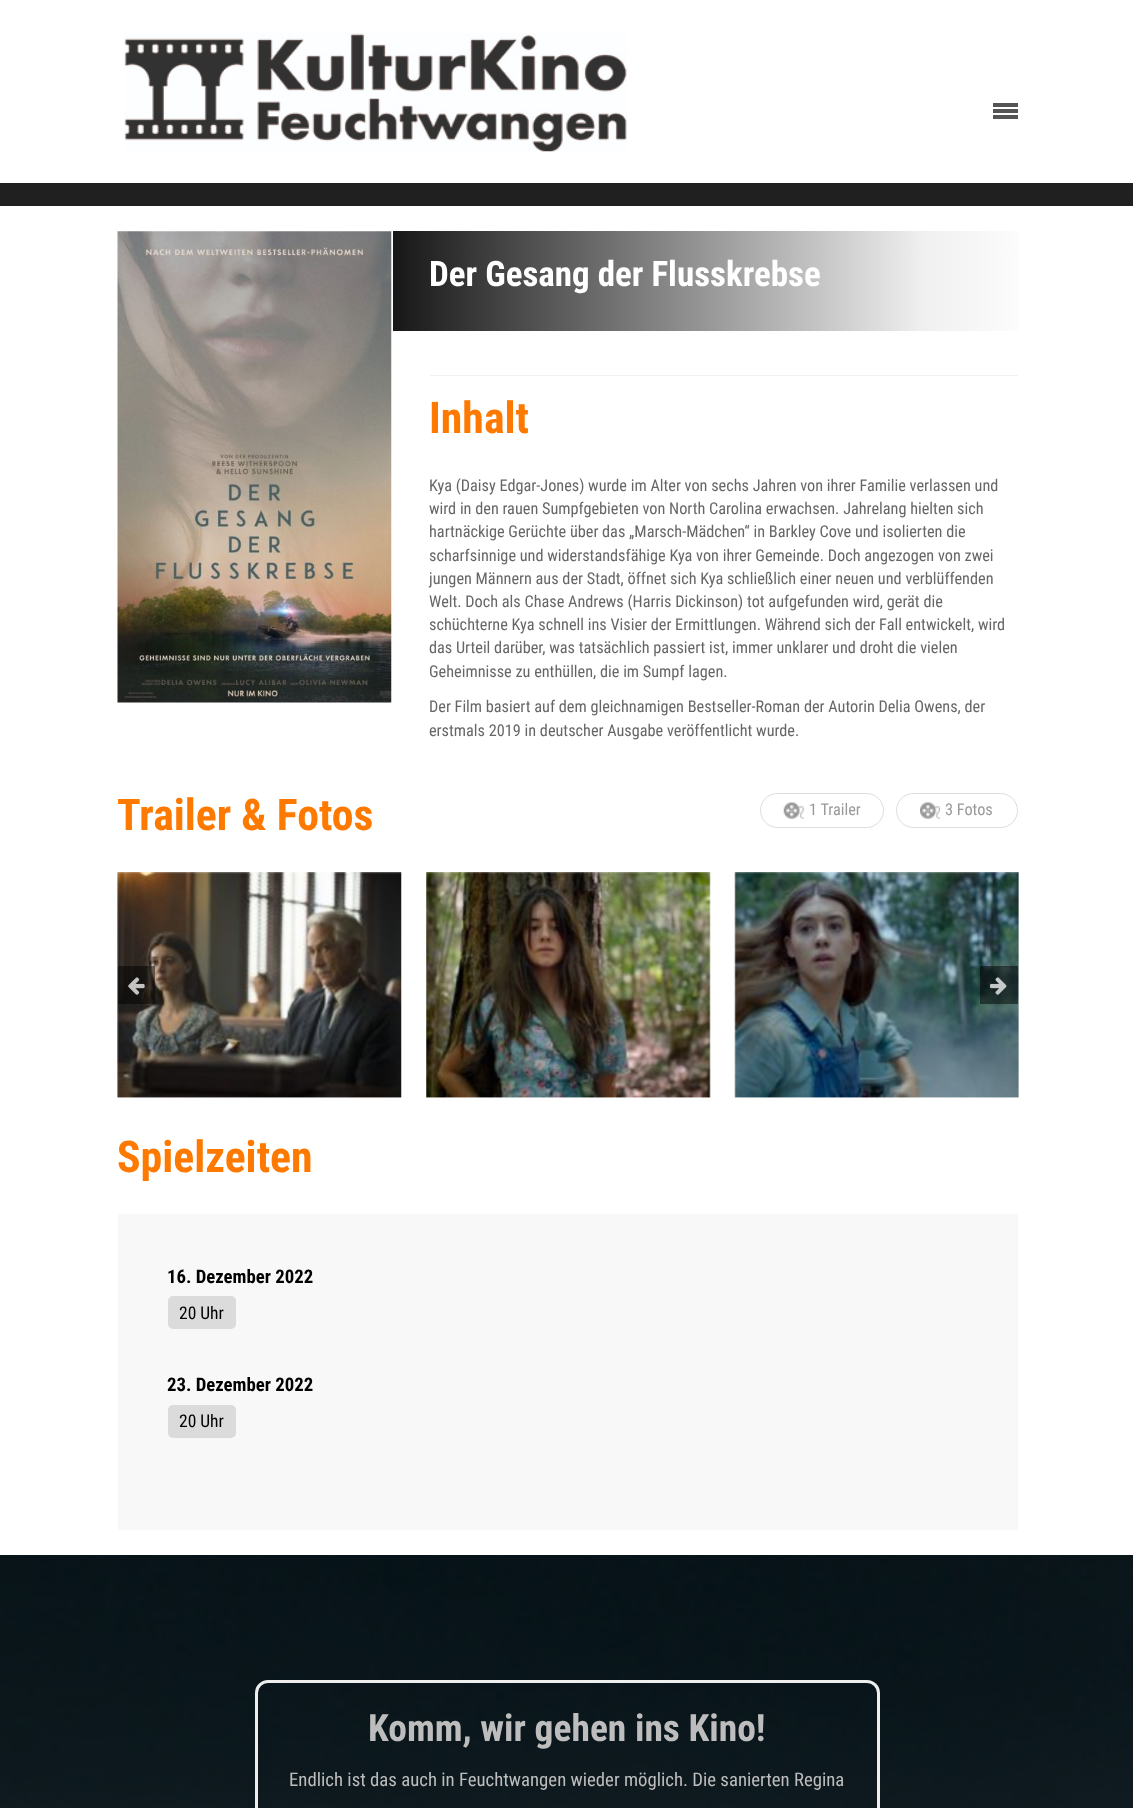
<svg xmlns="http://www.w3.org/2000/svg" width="1133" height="1808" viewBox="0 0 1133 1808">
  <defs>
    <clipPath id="clip1"><path d="M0 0H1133V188H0ZM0 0H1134V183H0Z" clip-rule="evenodd"/></clipPath>
    <linearGradient id="g1" gradientUnits="userSpaceOnUse" x1="393" y1="281" x2="1018" y2="281"><stop offset="0" stop-color="rgb(23,23,23)"/><stop offset="0.85" stop-color="rgb(240,240,240)"/><stop offset="1" stop-color="rgb(252,252,252)"/></linearGradient>
  </defs>
  <rect width="100%" height="100%" fill="rgb(255,255,255)"/>
  <g clip-path="url(#clip1)">
    <rect x="1" y="-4" width="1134" height="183" fill="rgb(0,0,0)" filter="blur(2.5px)"/>
  </g>
  <image x="124" y="33" width="503" height="119" href="pic1.png"/>
  <rect x="993" y="109" width="25" height="4" fill="rgb(85,85,85)"/>
  <rect x="993" y="103" width="25" height="4" fill="rgb(85,85,85)"/>
  <rect x="993" y="115" width="25" height="4" fill="rgb(85,85,85)"/>
  <rect x="0" y="183" width="1133" height="23" fill="rgb(32,32,32)"/>
  <image x="117" y="231" width="275" height="472" href="pic2.png"/>
  <rect x="393" y="231" width="625" height="100" fill="url(#g1)"/>
  <text x="429" y="286" font-family="Roboto Condensed" font-size="35" font-weight="bold" fill="rgb(255,255,255)">Der Gesang der Flusskrebse</text>
  <rect x="430" y="375" width="588" height="1" fill="rgb(241,241,241)"/>
  <text x="429" y="433" font-family="Roboto Condensed" font-size="43.75" font-weight="bold" fill="rgb(254,121,0)">Inhalt</text>
  <g font-family="Roboto Condensed" font-size="16.25" fill="rgb(102,102,102)">
    <text>
      <tspan x="429" y="491">Kya (Daisy Edgar-Jones) wurde im Alter von sechs Jahren von ihrer Familie verlassen und</tspan>
      <tspan x="429" y="514">wird in den rauen Sumpfgebieten von North Carolina erwachsen. Jahrelang hielten sich</tspan>
      <tspan x="429" y="537">hartnäckige Gerüchte über das „Marsch-Mädchen“ in Barkley Cove und isolierten die</tspan>
      <tspan x="429" y="561">scharfsinnige und widerstandsfähige Kya von ihrer Gemeinde. Doch angezogen von zwei</tspan>
      <tspan x="429" y="584">jungen Männern aus der Stadt, öffnet sich Kya schließlich einer neuen und verblüffenden</tspan>
      <tspan x="429" y="607">Welt. Doch als Chase Andrews (Harris Dickinson) tot aufgefunden wird, gerät die</tspan>
      <tspan x="429" y="630">schüchterne Kya schnell ins Visier der Ermittlungen. Während sich der Fall entwickelt, wird</tspan>
      <tspan x="429" y="653">das Urteil darüber, was tatsächlich passiert ist, immer unklarer und droht die vielen</tspan>
      <tspan x="429" y="677">Geheimnisse zu enthüllen, die im Sumpf lagen.</tspan>
    </text>
    <text>
      <tspan x="429" y="712">Der Film basiert auf dem gleichnamigen Bestseller-Roman der Autorin Delia Owens, der</tspan>
      <tspan x="429" y="736">erstmals 2019 in deutscher Ausgabe veröffentlicht wurde.</tspan>
    </text>
  </g>
  <text x="117" y="830" font-family="Roboto Condensed" font-size="43.75" font-weight="bold" fill="rgb(254,121,0)">Trailer &amp; Fotos</text>
  <rect x="760.5" y="793.5" width="123" height="34" rx="17" fill="none" stroke="rgb(221,221,221)"/>
  <image x="783" y="802" width="21" height="17" href="pic3.png"/>
  <text x="809" y="815" font-family="Roboto Condensed" font-size="16.25" fill="rgb(153,153,153)">1 Trailer</text>
  <rect x="896.5" y="793.5" width="121" height="34" rx="17" fill="none" stroke="rgb(221,221,221)"/>
  <image x="920" y="802" width="20" height="17" href="pic4.png"/>
  <text x="945" y="815" font-family="Roboto Condensed" font-size="16.25" fill="rgb(153,153,153)">3 Fotos</text>
  <image x="117" y="872" width="285" height="226" href="pic5.png"/>
  <image x="426" y="872" width="285" height="226" href="pic6.png"/>
  <image x="734" y="872" width="285" height="226" href="pic7.png"/>
  <rect x="118" y="966" width="37" height="38" fill="rgba(0,0,0,0.5)"/>
  <image x="128" y="977" width="17" height="18" href="pic8.png"/>
  <rect x="980" y="966" width="38" height="38" fill="rgba(0,0,0,0.5)"/>
  <image x="990" y="977" width="17" height="18" href="pic9.png"/>
  <text x="117" y="1172" font-family="Roboto Condensed" font-size="43.75" font-weight="bold" fill="rgb(254,121,0)">Spielzeiten</text>
  <rect x="118" y="1214" width="900" height="316" fill="rgb(248,248,248)"/>
  <text x="167" y="1283" font-family="Roboto Condensed" font-size="18.75" font-weight="bold" fill="rgb(0,0,0)">16. Dezember 2022</text>
  <rect x="168" y="1296" width="68" height="33" rx="5" fill="rgb(219,219,219)"/>
  <text x="179" y="1319" font-family="Roboto Condensed" font-size="17.5" fill="rgb(0,0,0)">20 Uhr</text>
  <text x="167" y="1391" font-family="Roboto Condensed" font-size="18.75" font-weight="bold" fill="rgb(0,0,0)">23. Dezember 2022</text>
  <rect x="168" y="1405" width="68" height="33" rx="5" fill="rgb(219,219,219)"/>
  <text x="179" y="1427" font-family="Roboto Condensed" font-size="17.5" fill="rgb(0,0,0)">20 Uhr</text>
  <image x="0" y="1555" width="1133" height="253" href="pic10.png"/>
  <rect x="256.5" y="1681.5" width="622" height="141" rx="11.5" fill="none" stroke="rgb(238,238,238)" stroke-width="3"/>
  <text x="368" y="1741" font-family="Roboto Condensed" font-size="37.5" font-weight="bold" fill="rgb(189,189,189)">Komm, wir gehen ins Kino!</text>
  <text x="289" y="1786" font-family="Roboto Condensed" font-size="18.75" fill="rgb(189,189,189)">Endlich ist das auch in Feuchtwangen wieder möglich. Die sanierten Regina</text>
</svg>
